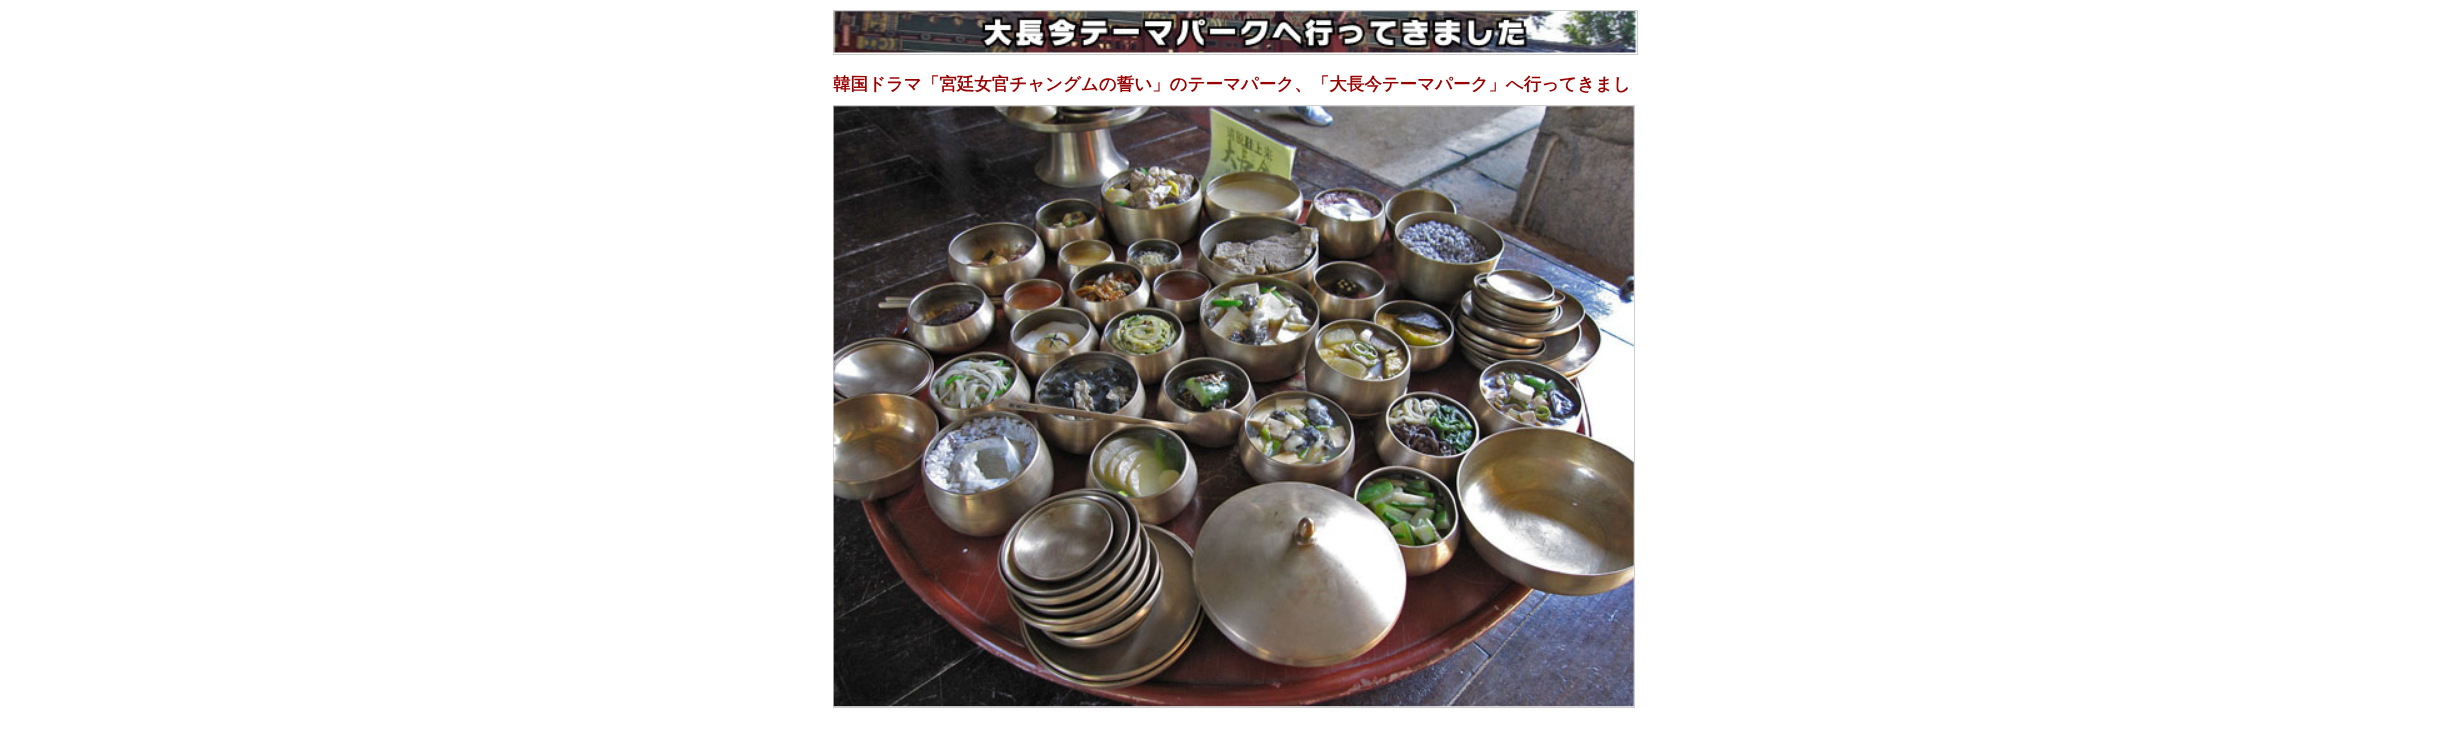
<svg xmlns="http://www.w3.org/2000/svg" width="2463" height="733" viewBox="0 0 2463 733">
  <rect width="100%" height="100%" fill="rgb(255,255,255)"/>
  <rect x="833.5" y="10.5" width="804" height="44" fill="none" stroke="rgb(204,204,204)"/>
  <image x="833" y="11" width="804" height="43" href="pic1.png"/>
  <text x="833" y="90" font-family="WenQuanYi Zen Hei" font-size="17.5" font-weight="bold" fill="rgb(153,0,0)">韓国ドラマ「宮廷女官チャングムの誓い」のテーマパーク、「大長今テーマパーク」へ行ってきまし</text>
  <rect x="833.5" y="105.5" width="801" height="602" fill="none" stroke="rgb(204,204,204)"/>
  <image x="833" y="106" width="801" height="601" href="pic2.png"/>
</svg>
